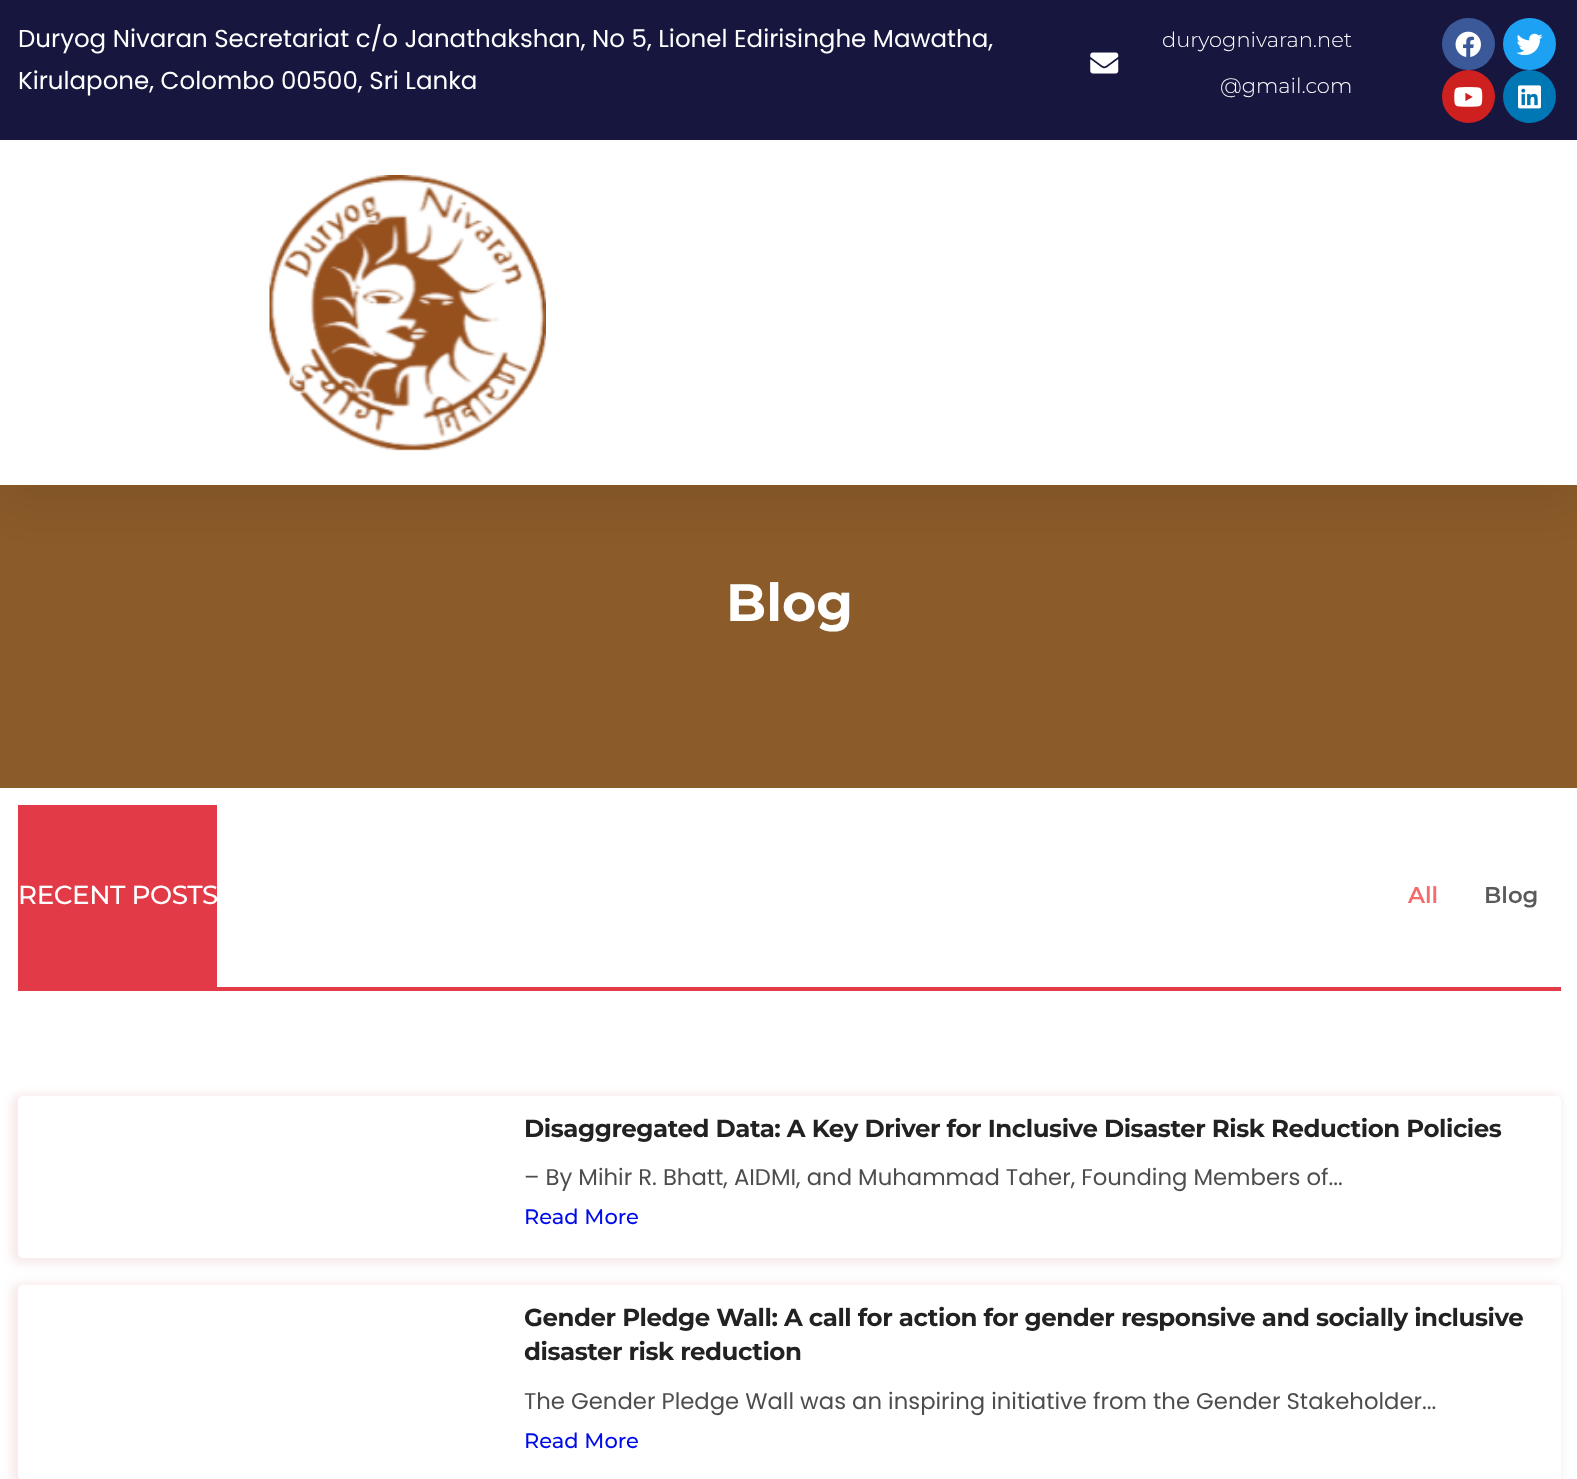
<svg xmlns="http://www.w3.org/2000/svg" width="1577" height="1479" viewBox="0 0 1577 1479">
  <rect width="100%" height="100%" fill="rgb(255,255,255)"/>
  <rect x="0" y="485" width="1577" height="303" fill="rgb(139,91,41)"/>
  <rect x="0" y="9" width="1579" height="485" fill="rgba(0,0,0,0.1)" filter="blur(26px)"/>
  <rect x="0" y="0" width="1577" height="140" fill="rgb(22,22,63)"/>
  <g font-family="Poppins" font-size="24.5" fill="rgb(255,255,255)">
    <text>
      <tspan x="18" y="47">Duryog Nivaran Secretariat c/o Janathakshan, No 5, Lionel Edirisinghe Mawatha,</tspan>
      <tspan x="18" y="89">Kirulapone, Colombo 00500, Sri Lanka</tspan>
    </text>
  </g>
  <image x="1090" y="52" width="29" height="22" href="pic1.png"/>
  <g font-family="Montserrat" font-size="21" font-weight="300" fill="rgb(255,255,255)">
    <text x="1162" y="47">duryognivaran.net</text>
    <text x="1220" y="93">@gmail.com</text>
  </g>
  <rect x="1442" y="18" width="53" height="52" rx="26" fill="rgb(59,89,152)"/>
  <image x="1455" y="31" width="26" height="26" href="pic2.png"/>
  <rect x="1503" y="18" width="53" height="52" rx="26" fill="rgb(29,161,242)"/>
  <image x="1516" y="33" width="27" height="23" href="pic3.png"/>
  <circle cx="1468.5" cy="96.5" r="26.5" fill="rgb(205,32,31)"/>
  <image x="1454" y="87" width="29" height="20" href="pic4.png"/>
  <circle cx="1529.5" cy="96.5" r="26.5" fill="rgb(0,119,181)"/>
  <image x="1518" y="85" width="23" height="24" href="pic5.png"/>
  <rect x="0" y="140" width="1577" height="345" fill="rgb(255,255,255)"/>
  <image x="269" y="175" width="277" height="276" href="pic6.png"/>
  <text x="726" y="621" font-family="Montserrat" font-size="52.5" font-weight="bold" fill="rgb(255,255,255)">Blog</text>
  <rect x="18" y="987" width="1543" height="4" fill="rgb(226,58,71)"/>
  <rect x="18" y="805" width="199" height="182" fill="rgb(226,58,71)"/>
  <text x="18" y="904" font-family="Montserrat" font-size="26.25" font-weight="500" letter-spacing="-0.45" fill="rgb(255,255,255)">RECENT POSTS</text>
  <text x="1408" y="903" font-family="Montserrat" font-size="22.75" font-weight="600" fill="rgb(245,106,106)">All</text>
  <text x="1484" y="903" font-family="Montserrat" font-size="22.75" font-weight="600" fill="rgb(90,90,90)">Blog</text>
  <rect x="11" y="1094" width="1550" height="170" rx="9" fill="rgb(247,234,234)" filter="blur(5px)"/>
  <rect x="18" y="1096" width="1543" height="162" rx="5" fill="rgb(255,255,255)"/>
  <text x="524" y="1137" font-family="Montserrat" font-size="24.5" font-weight="bold" letter-spacing="-0.45" fill="rgb(34,34,34)">Disaggregated Data: A Key Driver for Inclusive Disaster Risk Reduction Policies</text>
  <text x="524" y="1185" font-family="Poppins" font-size="22.75" fill="rgb(77,77,77)">– By Mihir R. Bhatt, AIDMI, and Muhammad Taher, Founding Members of...</text>
  <text x="524" y="1224" font-family="Montserrat" font-size="21" font-weight="500" fill="rgb(0,11,236)">Read More</text>
  <rect x="11" y="1283" width="1550" height="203" rx="9" fill="rgb(247,234,234)" filter="blur(5px)"/>
  <rect x="18" y="1285" width="1543" height="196" rx="5" fill="rgb(255,255,255)"/>
  <g font-family="Montserrat" font-size="24.5" font-weight="bold" letter-spacing="-0.45" fill="rgb(34,34,34)">
    <text>
      <tspan x="524" y="1326">Gender Pledge Wall: A call for action for gender responsive and socially inclusive</tspan>
      <tspan x="524" y="1360">disaster risk reduction</tspan>
    </text>
  </g>
  <text x="524" y="1409" font-family="Poppins" font-size="22.75" fill="rgb(77,77,77)">The Gender Pledge Wall was an inspiring initiative from the Gender Stakeholder...</text>
  <text x="524" y="1448" font-family="Montserrat" font-size="21" font-weight="500" fill="rgb(0,11,236)">Read More</text>
</svg>
